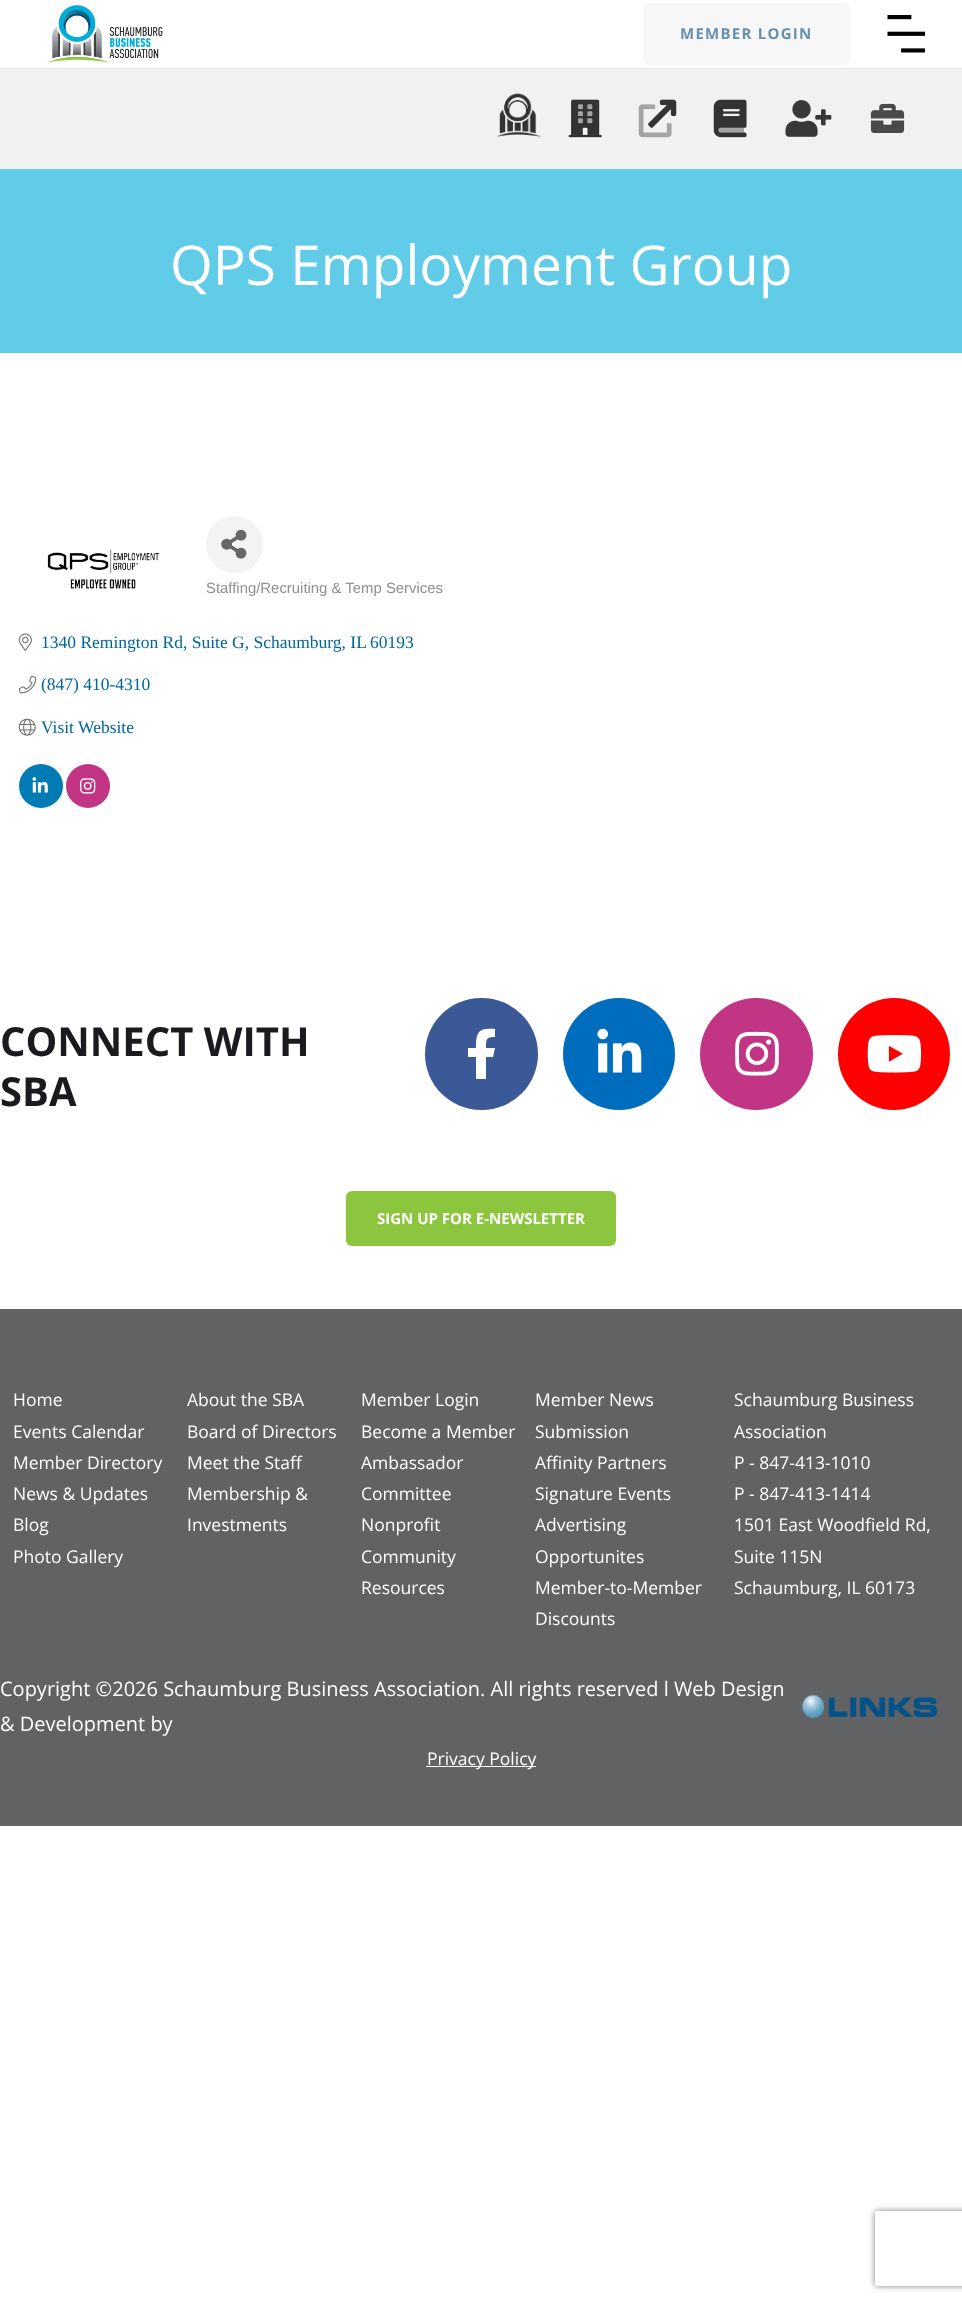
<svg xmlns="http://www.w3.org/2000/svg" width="962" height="2303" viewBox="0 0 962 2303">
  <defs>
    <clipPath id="clip1"><path d="M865 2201H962V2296H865ZM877.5 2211H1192.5C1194 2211 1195 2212 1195 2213.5V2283.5C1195 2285 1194 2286 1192.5 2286H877.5C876 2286 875 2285 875 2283.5V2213.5C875 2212 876 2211 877.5 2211Z" clip-rule="evenodd"/></clipPath>
  </defs>
  <rect width="100%" height="100%" fill="rgb(255,255,255)"/>
  <rect x="0" y="68" width="962" height="1" fill="rgb(230,230,230)"/>
  <image x="48" y="5" width="115" height="58" href="pic1.png"/>
  <rect x="643" y="3" width="207" height="62" rx="6" fill="rgb(247,247,247)"/>
  <text x="680" y="39" font-family="Open Sans" font-size="15" font-weight="bold" letter-spacing="1.25" fill="rgb(103,143,174)">MEMBER LOGIN</text>
  <image x="887" y="15" width="38" height="38" href="pic2.png"/>
  <rect x="0" y="69" width="962" height="100" fill="rgb(241,241,241)"/>
  <image x="497" y="93" width="44" height="44" href="pic3.png"/>
  <image x="568" y="99" width="34" height="39" href="pic4.png"/>
  <image x="578" y="104" width="14" height="19" href="pic5.png"/>
  <image x="648" y="99" width="29" height="29" href="pic6.png"/>
  <image x="638" y="104" width="34" height="34" href="pic7.png"/>
  <image x="713" y="99" width="34" height="39" href="pic8.png"/>
  <path d="M721 132.5C719.5 132.5 718.5 131.5 718.5 130C718.5 127 723 128 724.5 128H744V132.5Z" fill="rgba(51,51,51,0.4)"/>
  <image x="785" y="100" width="47" height="37" href="pic9.png"/>
  <image x="870" y="103" width="35" height="30" href="pic10.png"/>
  <rect x="0" y="169" width="962" height="184" fill="rgb(96,204,232)"/>
  <text x="170" y="285" font-family="Open Sans" font-size="55" fill="rgb(255,255,255)">QPS Employment Group</text>
  <image x="47" y="549" width="112" height="40" href="pic11.png"/>
  <circle cx="234.5" cy="544.5" r="28.5" fill="rgb(243,243,243)"/>
  <image x="221" y="529" width="26" height="30" href="pic12.png"/>
  <text x="206" y="593" font-family="Liberation Sans" font-size="14.9" fill="rgb(143,143,143)">Staffing/Recruiting &amp; Temp Services</text>
  <image x="18" y="633" width="14" height="18" href="pic13.png"/>
  <g font-family="Liberation Serif" font-size="17.5" fill="rgb(0,102,153)">
    <text x="41" y="648">1340 Remington Rd, Suite G, Schaumburg, IL</text>
    <text x="370" y="648">60193</text>
  </g>
  <image x="18" y="676" width="19" height="18" href="pic14.png"/>
  <text x="41" y="690" font-family="Liberation Serif" font-size="17.5" fill="rgb(0,102,153)">(847) 410-4310</text>
  <image x="18" y="718" width="18" height="18" href="pic15.png"/>
  <text x="41" y="733" font-family="Liberation Serif" font-size="17.5" fill="rgb(0,102,153)">Visit Website</text>
  <circle cx="41" cy="786" r="22" fill="rgb(0,123,181)"/>
  <image x="32" y="777" width="16" height="16" href="pic16.png"/>
  <circle cx="88" cy="786" r="22" fill="rgb(193,53,132)"/>
  <image x="80" y="778" width="16" height="16" href="pic17.png"/>
  <g font-family="Open Sans" font-size="40" font-weight="bold" fill="rgb(26,27,31)">
    <text>
      <tspan x="0" y="1056">CONNECT WITH</tspan>
      <tspan x="0" y="1106">SBA</tspan>
    </text>
  </g>
  <rect x="425" y="998" width="113" height="112" rx="56" fill="rgb(59,89,151)"/>
  <path d="M493 1057H486V1079H476V1057H468V1048H476C476 1031 479 1028 495 1029V1037C486 1037 486 1039 486 1048H495Z" fill="rgb(255,255,255)"/>
  <circle cx="619" cy="1054" r="56" fill="rgb(0,108,190)"/>
  <image x="597" y="1028" width="45" height="45" href="pic18.png"/>
  <rect x="700" y="998" width="113" height="112" rx="56" fill="rgb(193,53,132)"/>
  <image x="735" y="1031" width="44" height="45" href="pic19.png"/>
  <circle cx="894" cy="1054" r="56" fill="rgb(255,0,0)"/>
  <image x="867" y="1035" width="55" height="38" href="pic20.png"/>
  <rect x="346" y="1191" width="270" height="55" rx="6" fill="rgb(140,198,62)"/>
  <text x="377" y="1224" font-family="Open Sans" font-size="15" font-weight="bold" fill="rgb(255,255,255)">SIGN UP FOR E-NEWSLETTER</text>
  <rect x="0" y="1309" width="962" height="517" fill="rgb(97,98,100)"/>
  <g font-family="Open Sans" font-size="17.5" fill="rgb(255,255,255)">
    <text>
      <tspan x="13" y="1406">Home</tspan>
      <tspan x="13" y="1438">Events Calendar</tspan>
      <tspan x="13" y="1469">Member Directory</tspan>
      <tspan x="13" y="1500">News &amp; Updates</tspan>
      <tspan x="13" y="1531">Blog</tspan>
      <tspan x="13" y="1563">Photo Gallery</tspan>
    </text>
    <text>
      <tspan x="187" y="1406">About the SBA</tspan>
      <tspan x="187" y="1438">Board of Directors</tspan>
      <tspan x="187" y="1469">Meet the Staff</tspan>
      <tspan x="187" y="1500">Membership &amp;</tspan>
      <tspan x="187" y="1531">Investments</tspan>
    </text>
    <text>
      <tspan x="361" y="1406">Member Login</tspan>
      <tspan x="361" y="1438">Become a Member</tspan>
      <tspan x="361" y="1469">Ambassador</tspan>
      <tspan x="361" y="1500">Committee</tspan>
      <tspan x="361" y="1531">Nonprofit</tspan>
      <tspan x="361" y="1563">Community</tspan>
      <tspan x="361" y="1594">Resources</tspan>
    </text>
    <text>
      <tspan x="535" y="1406">Member News</tspan>
      <tspan x="535" y="1438">Submission</tspan>
      <tspan x="535" y="1469">Affinity Partners</tspan>
      <tspan x="535" y="1500">Signature Events</tspan>
      <tspan x="535" y="1531">Advertising</tspan>
      <tspan x="535" y="1563">Opportunites</tspan>
      <tspan x="535" y="1594">Member-to-Member</tspan>
      <tspan x="535" y="1625">Discounts</tspan>
    </text>
    <text>
      <tspan x="734" y="1406">Schaumburg Business</tspan>
      <tspan x="734" y="1438">Association</tspan>
      <tspan x="734" y="1469">P - 847-413-1010</tspan>
      <tspan x="734" y="1500">P - 847-413-1414</tspan>
      <tspan x="734" y="1531">1501 East Woodfield Rd,</tspan>
      <tspan x="734" y="1563">Suite 115N</tspan>
      <tspan x="734" y="1594">Schaumburg, IL 60173</tspan>
    </text>
  </g>
  <g font-family="Open Sans" font-size="20" fill="rgb(255,255,255)">
    <text>
      <tspan x="0" y="1696">Copyright ©2026 Schaumburg Business Association. All rights reserved l Web Design</tspan>
      <tspan x="0" y="1731">&amp; Development by</tspan>
    </text>
  </g>
  <image x="802" y="1694" width="136" height="24" href="pic21.png"/>
  <rect x="426" y="1766" width="110" height="1" fill="rgb(255,255,255)"/>
  <text x="427" y="1765" font-family="Open Sans" font-size="17.5" fill="rgb(255,255,255)">Privacy Policy</text>
  <g clip-path="url(#clip1)">
    <rect x="875" y="2211" width="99" height="75" rx="2.5" fill="rgb(128,128,128)" filter="blur(3px)"/>
  </g>
</svg>
